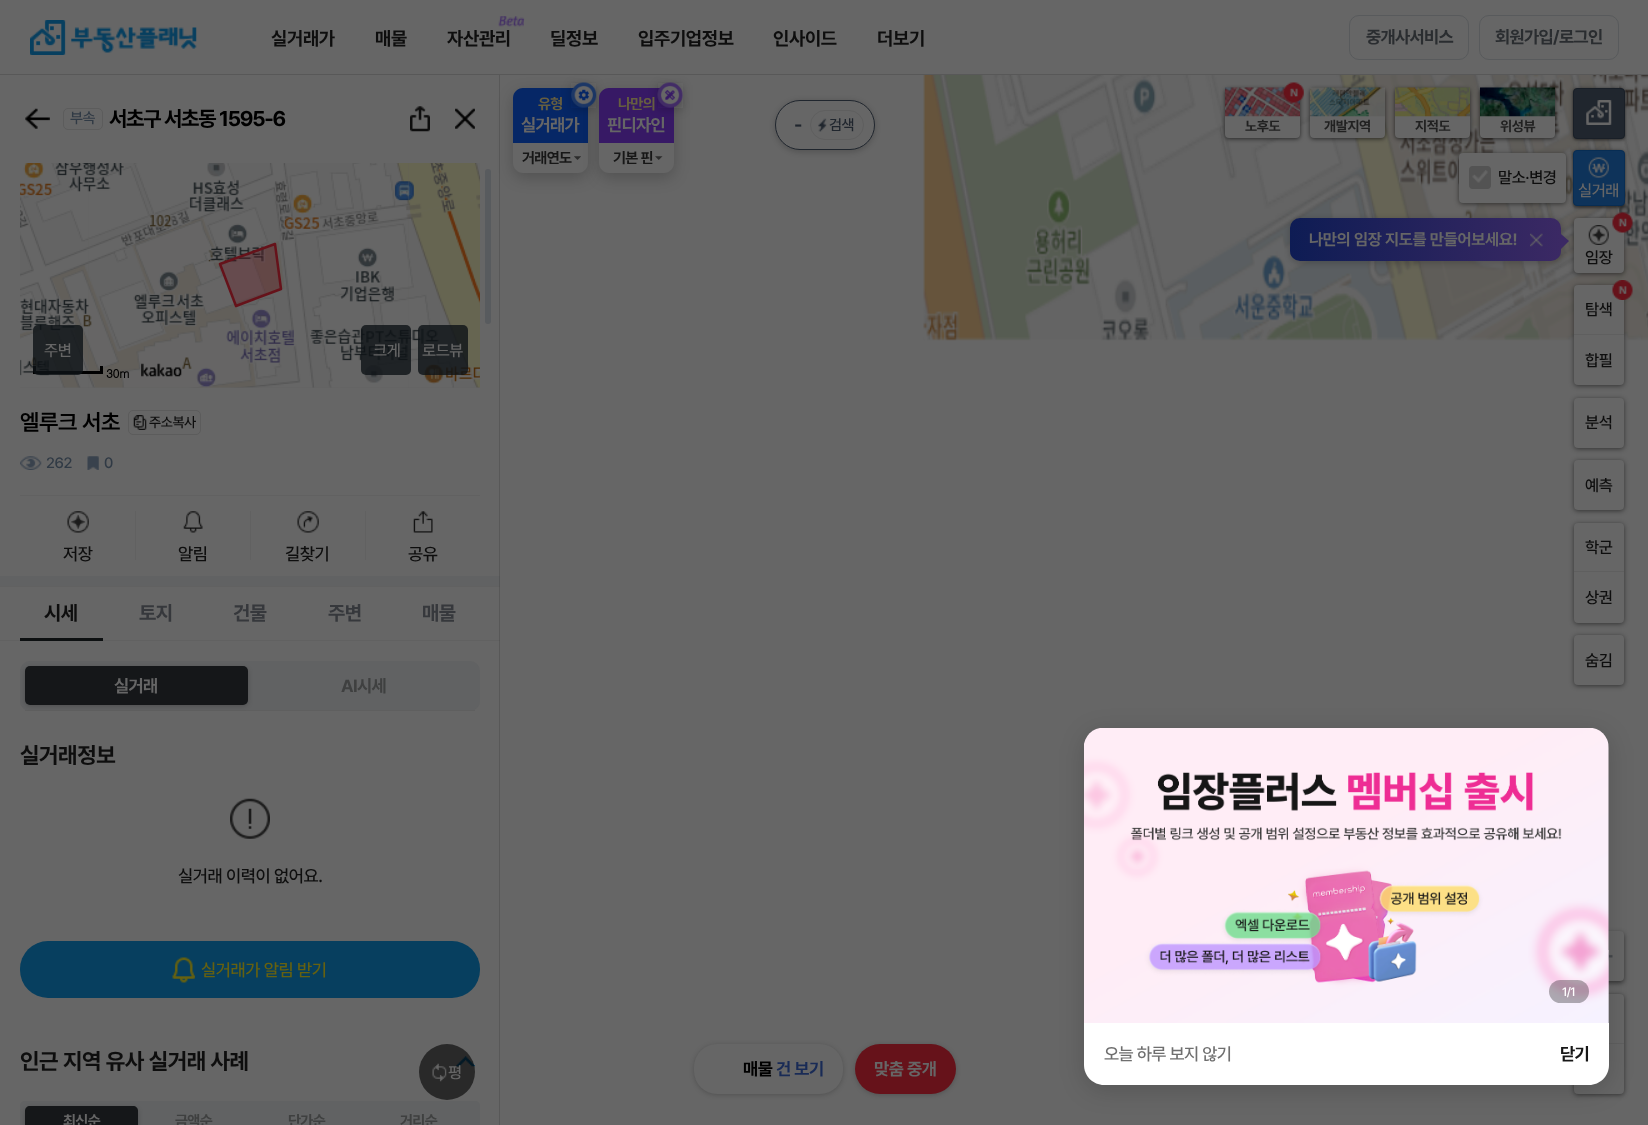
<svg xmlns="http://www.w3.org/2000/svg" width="1648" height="1125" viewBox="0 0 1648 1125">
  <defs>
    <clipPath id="clip1"><path d="M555 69H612V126H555ZM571 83H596V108H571Z" clip-rule="evenodd"/></clipPath>
    <clipPath id="clip2"><path d="M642 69H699V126H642ZM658 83H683V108H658Z" clip-rule="evenodd"/></clipPath>
    <linearGradient id="g1" gradientUnits="userSpaceOnUse" x1="1290" y1="239" x2="1561" y2="239"><stop offset="0" stop-color="rgb(14,28,84)"/><stop offset="1" stop-color="rgb(59,41,100)"/></linearGradient>
  </defs>
  <rect width="100%" height="100%" fill="rgb(102,102,102)"/>
  <rect x="513" y="93" width="75" height="85" rx="10" fill="rgba(0,0,0,0.2)" filter="blur(7.5px)"/>
  <path d="M523 88H578C583.5 88 588 92.5 588 98V143H513V98C513 92.5 517.5 88 523 88Z" fill="rgb(6,39,102)"/>
  <g clip-path="url(#clip1)">
    <rect x="571" y="85" width="25" height="25" fill="rgba(0,0,0,0.2)" filter="blur(5px)"/>
  </g>
  <path d="M513 143H588V163C588 168.5 583.5 173 578 173H523C517.5 173 513 168.5 513 163Z" fill="rgb(102,102,102)"/>
  <image x="574" y="156" width="7" height="4" href="pic22.png"/>
  <image x="571" y="82" width="26" height="26" href="pic23.png"/>
  <rect x="599" y="93" width="75" height="85" rx="10" fill="rgba(0,0,0,0.2)" filter="blur(7.5px)"/>
  <path d="M609 88H664C669.5 88 674 92.5 674 98V143H599V98C599 92.5 603.5 88 609 88Z" fill="rgb(55,25,101)"/>
  <g clip-path="url(#clip2)">
    <rect x="658" y="85" width="25" height="25" fill="rgba(0,0,0,0.2)" filter="blur(5px)"/>
  </g>
  <rect x="0" y="74" width="1648" height="1" fill="rgb(88,88,88)"/>
  <image x="30" y="20" width="167" height="35" href="pic1.png"/>
  <g font-family="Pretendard" font-size="18.75" font-weight="bold" letter-spacing="-0.25" fill="rgb(14,14,14)">
    <text x="271" y="45">실거래가</text>
    <text x="375" y="45">매물</text>
  </g>
  <image x="498" y="16" width="27" height="11" href="pic2.png"/>
  <g font-family="Pretendard" font-size="18.75" font-weight="bold" letter-spacing="-0.25" fill="rgb(14,14,14)">
    <text x="447" y="45">자산관리</text>
    <text x="550" y="45">딜정보</text>
    <text x="638" y="45">입주기업정보</text>
    <text x="773" y="45">인사이드</text>
    <text x="877" y="45">더보기</text>
  </g>
  <rect x="1349.5" y="15.5" width="119" height="44" rx="9.5" fill="none" stroke="rgb(88,90,92)"/>
  <text x="1366" y="43" font-family="Pretendard" font-size="17.5" font-weight="bold" letter-spacing="-0.6" fill="rgb(42,45,48)">중개사서비스</text>
  <rect x="1479.5" y="15.5" width="139" height="44" rx="9.5" fill="none" stroke="rgb(88,90,92)"/>
  <text x="1495" y="43" font-family="Pretendard" font-size="17.5" font-weight="bold" letter-spacing="-0.6" fill="rgb(42,45,48)">회원가입/로그인</text>
  <image x="25" y="108" width="25" height="21" href="pic3.png"/>
  <rect x="63.5" y="108.5" width="39" height="21" rx="4.5" fill="none" stroke="rgb(92,92,92)"/>
  <text x="70" y="123" font-family="Pretendard" font-size="15" font-weight="500" letter-spacing="-0.4" fill="rgb(48,58,69)">부속</text>
  <text x="109" y="126" font-family="Pretendard" font-size="21.25" font-weight="bold" letter-spacing="-1.25" fill="rgb(0,0,0)">서초구 서초동 1595-6</text>
  <image x="410" y="106" width="20" height="26" href="pic4.png"/>
  <image x="455" y="108" width="20" height="21" href="pic5.png"/>
  <rect x="485" y="169" width="6" height="155" rx="3" fill="rgb(88,91,94)"/>
  <rect x="0" y="576" width="500" height="10" fill="rgb(97,98,99)"/>
  <image x="20" y="163" width="460" height="225" href="pic6.png"/>
  <image x="20" y="163" width="69" height="225" href="pic7.png"/>
  <image x="88" y="163" width="321" height="225" href="pic8.png"/>
  <image x="408" y="163" width="72" height="225" href="pic9.png"/>
  <path d="M275 244L281 289L236 306L220 264Z" fill="rgba(102,18,26,0.3)" fill-rule="evenodd" stroke="rgb(102,18,26)" stroke-width="2.5" stroke-linecap="round" stroke-linejoin="round"/>
  <rect x="100" y="366" width="3" height="8" fill="rgb(0,0,0)"/>
  <rect x="33" y="371" width="70" height="3" fill="rgb(0,0,0)"/>
  <rect x="33" y="366" width="3" height="8" fill="rgb(0,0,0)"/>
  <rect x="33" y="325" width="50" height="50" rx="5" fill="rgba(14,19,23,0.8)"/>
  <text x="44" y="356" font-family="Pretendard" font-size="16.25" font-weight="500" letter-spacing="-0.4" fill="rgb(102,102,102)">주변</text>
  <rect x="361" y="325" width="50" height="50" rx="5" fill="rgba(14,19,23,0.8)"/>
  <text x="373" y="356" font-family="Pretendard" font-size="16.25" font-weight="500" letter-spacing="-0.4" fill="rgb(102,102,102)">크게</text>
  <rect x="418" y="325" width="50" height="50" rx="5" fill="rgba(14,19,23,0.8)"/>
  <text x="422" y="356" font-family="Pretendard" font-size="16.25" font-weight="500" letter-spacing="-0.4" fill="rgb(102,102,102)">로드뷰</text>
  <text x="106" y="378" font-family="Dotum" font-size="12" font-weight="bold" letter-spacing="-0.4" fill="rgb(0,0,0)">30m</text>
  <image x="141" y="363" width="41" height="14" href="pic10.png"/>
  <text x="20" y="430" font-family="Pretendard" font-size="22.5" font-weight="600" letter-spacing="-0.4" fill="rgb(0,0,0)">엘루크 서초</text>
  <rect x="128.5" y="410.5" width="72" height="24" rx="4.5" fill="none" stroke="rgb(92,92,92)"/>
  <image x="133" y="415" width="14" height="15" href="pic11.png"/>
  <text x="149" y="427" font-family="Pretendard" font-size="14" font-weight="500" letter-spacing="-0.4" fill="rgb(14,14,14)">주소복사</text>
  <image x="20" y="456" width="22" height="14" href="pic12.png"/>
  <text x="46" y="468" font-family="Pretendard" font-size="15" font-weight="500" letter-spacing="-0.4" fill="rgb(48,58,69)">262</text>
  <image x="87" y="456" width="12" height="14" href="pic13.png"/>
  <text x="104" y="468" font-family="Pretendard" font-size="15" font-weight="500" letter-spacing="-0.4" fill="rgb(48,58,69)">0</text>
  <rect x="20" y="495" width="460" height="1" fill="rgb(97,97,97)"/>
  <image x="67" y="511" width="22" height="22" href="pic14.png"/>
  <text x="63" y="560" font-family="Pretendard" font-size="17.5" font-weight="500" letter-spacing="-0.4" fill="rgb(14,14,14)">저장</text>
  <rect x="135" y="511" width="1" height="49" fill="rgb(97,97,97)"/>
  <image x="183" y="511" width="20" height="22" href="pic15.png"/>
  <text x="178" y="560" font-family="Pretendard" font-size="17.5" font-weight="500" letter-spacing="-0.4" fill="rgb(14,14,14)">알림</text>
  <rect x="250" y="511" width="1" height="49" fill="rgb(97,97,97)"/>
  <image x="297" y="511" width="22" height="22" href="pic16.png"/>
  <text x="285" y="560" font-family="Pretendard" font-size="17.5" font-weight="500" letter-spacing="-0.4" fill="rgb(14,14,14)">길찾기</text>
  <rect x="365" y="511" width="1" height="49" fill="rgb(97,97,97)"/>
  <image x="413" y="511" width="20" height="22" href="pic17.png"/>
  <text x="408" y="560" font-family="Pretendard" font-size="17.5" font-weight="500" letter-spacing="-0.4" fill="rgb(14,14,14)">공유</text>
  <rect x="0" y="586" width="500" height="1" fill="rgb(97,97,97)"/>
  <rect x="0" y="640" width="500" height="1" fill="rgb(97,97,97)"/>
  <text x="44" y="620" font-family="Pretendard" font-size="20" font-weight="bold" letter-spacing="-0.6" fill="rgb(14,14,14)">시세</text>
  <rect x="20" y="638" width="83" height="3" fill="rgb(13,16,17)"/>
  <g font-family="Pretendard" font-size="20" font-weight="bold" letter-spacing="-0.6" fill="rgb(54,56,60)">
    <text x="139" y="620">토지</text>
    <text x="233" y="620">건물</text>
    <text x="328" y="620">주변</text>
    <text x="422" y="620">매물</text>
  </g>
  <rect x="20" y="661" width="460" height="50" rx="10" fill="rgb(97,98,99)"/>
  <rect x="25" y="710" width="450" height="1" fill="rgb(95,95,95)"/>
  <rect x="25" y="668" width="223" height="38" rx="5" fill="rgba(0,0,0,0.2)" filter="blur(2.5px)"/>
  <rect x="25" y="666" width="223" height="39" rx="5" fill="rgb(21,23,25)"/>
  <text x="114" y="692" font-family="Pretendard" font-size="17.5" font-weight="bold" letter-spacing="-0.6" fill="rgb(102,102,102)">실거래</text>
  <text x="341" y="692" font-family="Pretendard" font-size="17.5" font-weight="bold" letter-spacing="-0.6" fill="rgb(63,64,64)">AI시세</text>
  <text x="20" y="763" font-family="Pretendard" font-size="22.5" font-weight="bold" letter-spacing="-0.4" fill="rgb(14,14,14)">실거래정보</text>
  <image x="230" y="798" width="40" height="41" href="pic18.png"/>
  <text x="178" y="882" font-family="Pretendard" font-size="17.5" font-weight="500" letter-spacing="-0.4" fill="rgb(14,14,14)">실거래 이력이 없어요.</text>
  <rect x="20" y="941" width="460" height="57" rx="28" fill="rgb(7,63,95)"/>
  <image x="172" y="957" width="23" height="26" href="pic19.png"/>
  <text x="201" y="976" font-family="Pretendard" font-size="17.5" font-weight="500" letter-spacing="-0.4" fill="rgb(102,97,16)">실거래가 알림 받기</text>
  <text x="20" y="1069" font-family="Pretendard" font-size="22.5" font-weight="bold" letter-spacing="-0.4" fill="rgb(14,14,14)">인근 지역 유사 실거래 사례</text>
  <image x="456" y="1056" width="19" height="11" href="pic20.png"/>
  <path d="M25 1101H475C478 1101 480 1103 480 1106V1125H20V1106C20 1103 22 1101 25 1101Z" fill="rgb(97,98,99)"/>
  <rect x="25" y="1108" width="113" height="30" rx="5" fill="rgba(0,0,0,0.2)" filter="blur(2.5px)"/>
  <path d="M30 1106H133C136 1106 138 1108 138 1111V1125H25V1111C25 1108 27 1106 30 1106Z" fill="rgb(21,23,25)"/>
  <text x="63" y="1126" font-family="Pretendard" font-size="15" font-weight="bold" letter-spacing="-0.6" fill="rgb(102,102,102)">최신순</text>
  <g font-family="Pretendard" font-size="15" font-weight="bold" letter-spacing="-0.6" fill="rgb(63,64,64)">
    <text x="175" y="1126">금액순</text>
    <text x="288" y="1126">단가순</text>
    <text x="400" y="1126">거리순</text>
  </g>
  <circle cx="447" cy="1072" r="28" fill="rgba(0,0,0,0.6)"/>
  <image x="432" y="1063" width="15" height="19" href="pic21.png"/>
  <text x="448" y="1078" font-family="Pretendard" font-size="16.25" font-weight="500" letter-spacing="-0.4" fill="rgb(102,102,102)">평</text>
  <rect x="499" y="75" width="1" height="1050" fill="rgba(0,0,0,0.13)"/>
  <text x="538" y="109" font-family="Pretendard" font-size="15" font-weight="bold" letter-spacing="-0.6" fill="rgb(102,94,64)">유형</text>
  <text x="521" y="131" font-family="Pretendard" font-size="17.5" font-weight="bold" letter-spacing="-0.6" fill="rgb(102,102,102)">실거래가</text>
  <text x="522" y="163" font-family="Pretendard" font-size="15" font-weight="bold" letter-spacing="-0.6" fill="rgb(23,23,23)">거래연도</text>
  <text x="618" y="109" font-family="Pretendard" font-size="15" font-weight="bold" letter-spacing="-0.6" fill="rgb(102,94,64)">나만의</text>
  <text x="607" y="131" font-family="Pretendard" font-size="17.5" font-weight="bold" letter-spacing="-0.6" fill="rgb(102,102,102)">핀디자인</text>
  <path d="M599 143H674V163C674 168.5 669.5 173 664 173H609C603.5 173 599 168.5 599 163Z" fill="rgb(102,102,102)"/>
  <text x="613" y="163" font-family="Pretendard" font-size="15" font-weight="bold" letter-spacing="-0.6" fill="rgb(23,23,23)">기본 핀</text>
  <image x="655" y="156" width="8" height="4" href="pic24.png"/>
  <image x="657" y="82" width="26" height="26" href="pic25.png"/>
  <rect x="774" y="100" width="102" height="53" rx="26.5" fill="rgba(0,0,0,0.15)" filter="blur(2.5px)"/>
  <rect x="775.5" y="100.5" width="99" height="49" rx="24.5" fill="rgb(102,102,102)" stroke="rgb(32,38,46)"/>
  <text x="794" y="131" font-family="Pretendard" font-size="18.75" font-weight="bold" letter-spacing="-0.4" fill="rgb(32,38,46)">-</text>
  <rect x="810.5" y="110.5" width="53" height="29" rx="14.5" fill="none" stroke="rgb(95,95,95)"/>
  <image x="818" y="118" width="9" height="14" href="pic26.png"/>
  <text x="829" y="130" font-family="Pretendard" font-size="15" font-weight="500" letter-spacing="-0.4" fill="rgb(32,38,46)">검색</text>
  <image x="923" y="75" width="725" height="266" href="pic27.png"/>
  <rect x="1225" y="89" width="75" height="50" rx="4" fill="rgba(0,0,0,0.6)" filter="blur(2px)"/>
  <rect x="1225" y="88" width="75" height="50" rx="4" fill="rgb(102,102,102)"/>
  <image x="1225" y="87" width="75" height="30" href="pic29.png"/>
  <image x="1283" y="82" width="21" height="21" href="pic28.png"/>
  <text x="1245" y="131" font-family="Pretendard" font-size="14" font-weight="bold" letter-spacing="-0.4" fill="rgb(33,33,33)">노후도</text>
  <rect x="1310" y="89" width="75" height="50" rx="4" fill="rgba(0,0,0,0.6)" filter="blur(2px)"/>
  <rect x="1310" y="88" width="75" height="50" rx="4" fill="rgb(102,102,102)"/>
  <image x="1310" y="87" width="75" height="30" href="pic30.png"/>
  <text x="1324" y="131" font-family="Pretendard" font-size="14" font-weight="bold" letter-spacing="-0.4" fill="rgb(33,33,33)">개발지역</text>
  <rect x="1395" y="89" width="75" height="50" rx="4" fill="rgba(0,0,0,0.6)" filter="blur(2px)"/>
  <rect x="1395" y="88" width="75" height="50" rx="4" fill="rgb(102,102,102)"/>
  <image x="1395" y="87" width="75" height="30" href="pic31.png"/>
  <text x="1415" y="131" font-family="Pretendard" font-size="14" font-weight="bold" letter-spacing="-0.4" fill="rgb(33,33,33)">지적도</text>
  <rect x="1480" y="89" width="75" height="50" rx="4" fill="rgba(0,0,0,0.6)" filter="blur(2px)"/>
  <rect x="1480" y="88" width="75" height="50" rx="4" fill="rgb(102,102,102)"/>
  <image x="1480" y="87" width="75" height="30" href="pic32.png"/>
  <text x="1500" y="131" font-family="Pretendard" font-size="14" font-weight="bold" letter-spacing="-0.4" fill="rgb(33,33,33)">위성뷰</text>
  <rect x="1574" y="89" width="50" height="50" rx="4" fill="rgba(0,0,0,0.5)" filter="blur(2.5px)"/>
  <rect x="1573" y="89" width="52" height="51" rx="4" fill="rgba(0,0,0,0.3)" filter="blur(1px)"/>
  <rect x="1573.5" y="88.5" width="51" height="50" rx="3.5" fill="rgb(32,38,46)" stroke="rgb(25,31,39)"/>
  <image x="1586" y="100" width="26" height="25" href="pic33.png"/>
  <rect x="1574" y="151" width="50" height="55" rx="4" fill="rgba(0,0,0,0.5)" filter="blur(2.5px)"/>
  <rect x="1573" y="151" width="52" height="57" rx="4" fill="rgba(0,0,0,0.3)" filter="blur(1px)"/>
  <rect x="1573.5" y="150.5" width="51" height="55" rx="3.5" fill="rgb(14,51,90)" stroke="rgb(8,45,83)"/>
  <rect x="1459" y="154" width="107" height="50" rx="4" fill="rgba(0,0,0,0.5)" filter="blur(2.5px)"/>
  <rect x="1459" y="153" width="107" height="50" rx="4" fill="rgb(102,102,102)"/>
  <rect x="1469" y="166" width="22" height="23" rx="4" fill="rgb(83,83,83)"/>
  <image x="1472" y="170" width="16" height="13" href="pic34.png"/>
  <text x="1498" y="183" font-family="Pretendard" font-size="16.25" font-weight="500" letter-spacing="-0.4" fill="rgb(14,14,14)">말소·변경</text>
  <image x="1588" y="157" width="21" height="21" href="pic35.png"/>
  <text x="1578" y="196" font-family="Pretendard" font-size="16.25" font-weight="500" letter-spacing="-0.4" fill="rgb(102,102,102)">실거래</text>
  <rect x="1574" y="219" width="50" height="55" rx="4" fill="rgba(0,0,0,0.5)" filter="blur(2.5px)"/>
  <rect x="1574" y="218" width="50" height="55" rx="4" fill="rgb(102,102,102)"/>
  <rect x="1289" y="218" width="274" height="46" rx="11" fill="rgba(0,0,0,0.15)" filter="blur(2.5px)"/>
  <rect x="1290" y="218" width="271" height="43" rx="10" fill="url(#g1)"/>
  <text x="1309" y="245" font-family="Pretendard" font-size="16.25" font-weight="bold" letter-spacing="-0.25" fill="rgb(102,102,102)">나만의 임장 지도를 만들어보세요!</text>
  <image x="1530" y="233" width="13" height="14" href="pic36.png"/>
  <path d="M1561 249V234L1569 241Z" fill="rgb(59,41,100)"/>
  <image x="1612" y="212" width="21" height="21" href="pic37.png"/>
  <image x="1588" y="225" width="21" height="20" href="pic38.png"/>
  <text x="1585" y="263" font-family="Pretendard" font-size="16.25" font-weight="500" letter-spacing="-0.4" fill="rgb(14,14,14)">임장</text>
  <rect x="1574" y="286" width="50" height="100" rx="4" fill="rgba(0,0,0,0.5)" filter="blur(2.5px)"/>
  <rect x="1574" y="285" width="50" height="100" rx="4" fill="rgb(102,102,102)"/>
  <rect x="1574" y="334" width="50" height="1" fill="rgb(95,95,95)"/>
  <image x="1612" y="280" width="21" height="20" href="pic39.png"/>
  <g font-family="Pretendard" font-size="16.25" font-weight="500" letter-spacing="-0.4" fill="rgb(14,14,14)">
    <text x="1585" y="315">탐색</text>
    <text x="1585" y="366">합필</text>
  </g>
  <rect x="1574" y="399" width="50" height="50" rx="4" fill="rgba(0,0,0,0.5)" filter="blur(2.5px)"/>
  <rect x="1574" y="398" width="50" height="50" rx="4" fill="rgb(102,102,102)"/>
  <text x="1585" y="428" font-family="Pretendard" font-size="16.25" font-weight="500" letter-spacing="-0.4" fill="rgb(14,14,14)">분석</text>
  <rect x="1574" y="461" width="50" height="50" rx="4" fill="rgba(0,0,0,0.5)" filter="blur(2.5px)"/>
  <rect x="1574" y="460" width="50" height="50" rx="4" fill="rgb(102,102,102)"/>
  <text x="1585" y="491" font-family="Pretendard" font-size="16.25" font-weight="500" letter-spacing="-0.4" fill="rgb(14,14,14)">예측</text>
  <rect x="1574" y="524" width="50" height="100" rx="4" fill="rgba(0,0,0,0.5)" filter="blur(2.5px)"/>
  <rect x="1574" y="523" width="50" height="100" rx="4" fill="rgb(102,102,102)"/>
  <rect x="1574" y="571" width="50" height="1" fill="rgb(95,95,95)"/>
  <g font-family="Pretendard" font-size="16.25" font-weight="500" letter-spacing="-0.4" fill="rgb(14,14,14)">
    <text x="1585" y="553">학군</text>
    <text x="1585" y="603">상권</text>
  </g>
  <rect x="1574" y="636" width="50" height="50" rx="4" fill="rgba(0,0,0,0.5)" filter="blur(2.5px)"/>
  <rect x="1574" y="635" width="50" height="50" rx="4" fill="rgb(102,102,102)"/>
  <text x="1585" y="666" font-family="Pretendard" font-size="16.25" font-weight="500" letter-spacing="-0.4" fill="rgb(14,14,14)">숨김</text>
  <rect x="694" y="1045" width="149" height="50" rx="23" fill="rgba(0,0,0,0.2)" filter="blur(2.5px)"/>
  <rect x="694" y="1044" width="149" height="50" rx="23" fill="rgb(102,102,102)"/>
  <text x="743" y="1075" font-family="Pretendard" font-size="17.5" font-weight="bold" letter-spacing="-0.4" fill="rgb(0,0,0)">매물</text>
  <text x="776" y="1075" font-family="Pretendard" font-size="17.5" font-weight="bold" letter-spacing="-0.4" fill="rgb(25,43,86)">건 보기</text>
  <rect x="855" y="1045" width="101" height="50" rx="25" fill="rgba(0,0,0,0.2)" filter="blur(2.5px)"/>
  <rect x="855" y="1044" width="101" height="50" rx="25" fill="rgb(102,18,26)"/>
  <text x="874" y="1075" font-family="Pretendard" font-size="17.5" font-weight="bold" letter-spacing="-0.4" fill="rgb(102,102,102)">맞춤 중개</text>
  <rect x="1574" y="933" width="50" height="50" rx="4" fill="rgba(0,0,0,0.5)" filter="blur(2.5px)"/>
  <rect x="1574" y="931" width="50" height="50" rx="4" fill="rgb(102,102,102)"/>
  <image x="1608" y="951" width="5" height="11" href="pic40.png"/>
  <rect x="1574" y="995" width="50" height="100" rx="4" fill="rgba(0,0,0,0.5)" filter="blur(2.5px)"/>
  <rect x="1574" y="994" width="50" height="100" rx="4" fill="rgb(102,102,102)"/>
  <rect x="1609" y="1043" width="15" height="1" fill="rgb(95,95,95)"/>
  <rect x="1084" y="733" width="525" height="357" rx="20" fill="rgba(0,0,0,0.16)" filter="blur(12.5px)"/>
  <image x="1084" y="728" width="525" height="295" href="pic41.png"/>
  <rect x="1549" y="980" width="40" height="23" rx="11.5" fill="rgba(0,0,0,0.3)"/>
  <text x="1562" y="996" font-family="Pretendard" font-size="12" font-weight="500" letter-spacing="-0.6" fill="rgb(255,255,255)">1/1</text>
  <path d="M1084 1023H1609V1065C1609 1076 1600 1085 1589 1085H1104C1093 1085 1084 1076 1084 1065Z" fill="rgb(255,255,255)"/>
  <text x="1104" y="1060" font-family="Pretendard" font-size="17.5" font-weight="500" letter-spacing="-0.6" fill="rgb(111,111,111)">오늘 하루 보지 않기</text>
  <text x="1560" y="1060" font-family="Pretendard" font-size="17.5" font-weight="bold" letter-spacing="-0.6" fill="rgb(23,23,23)">닫기</text>
</svg>
